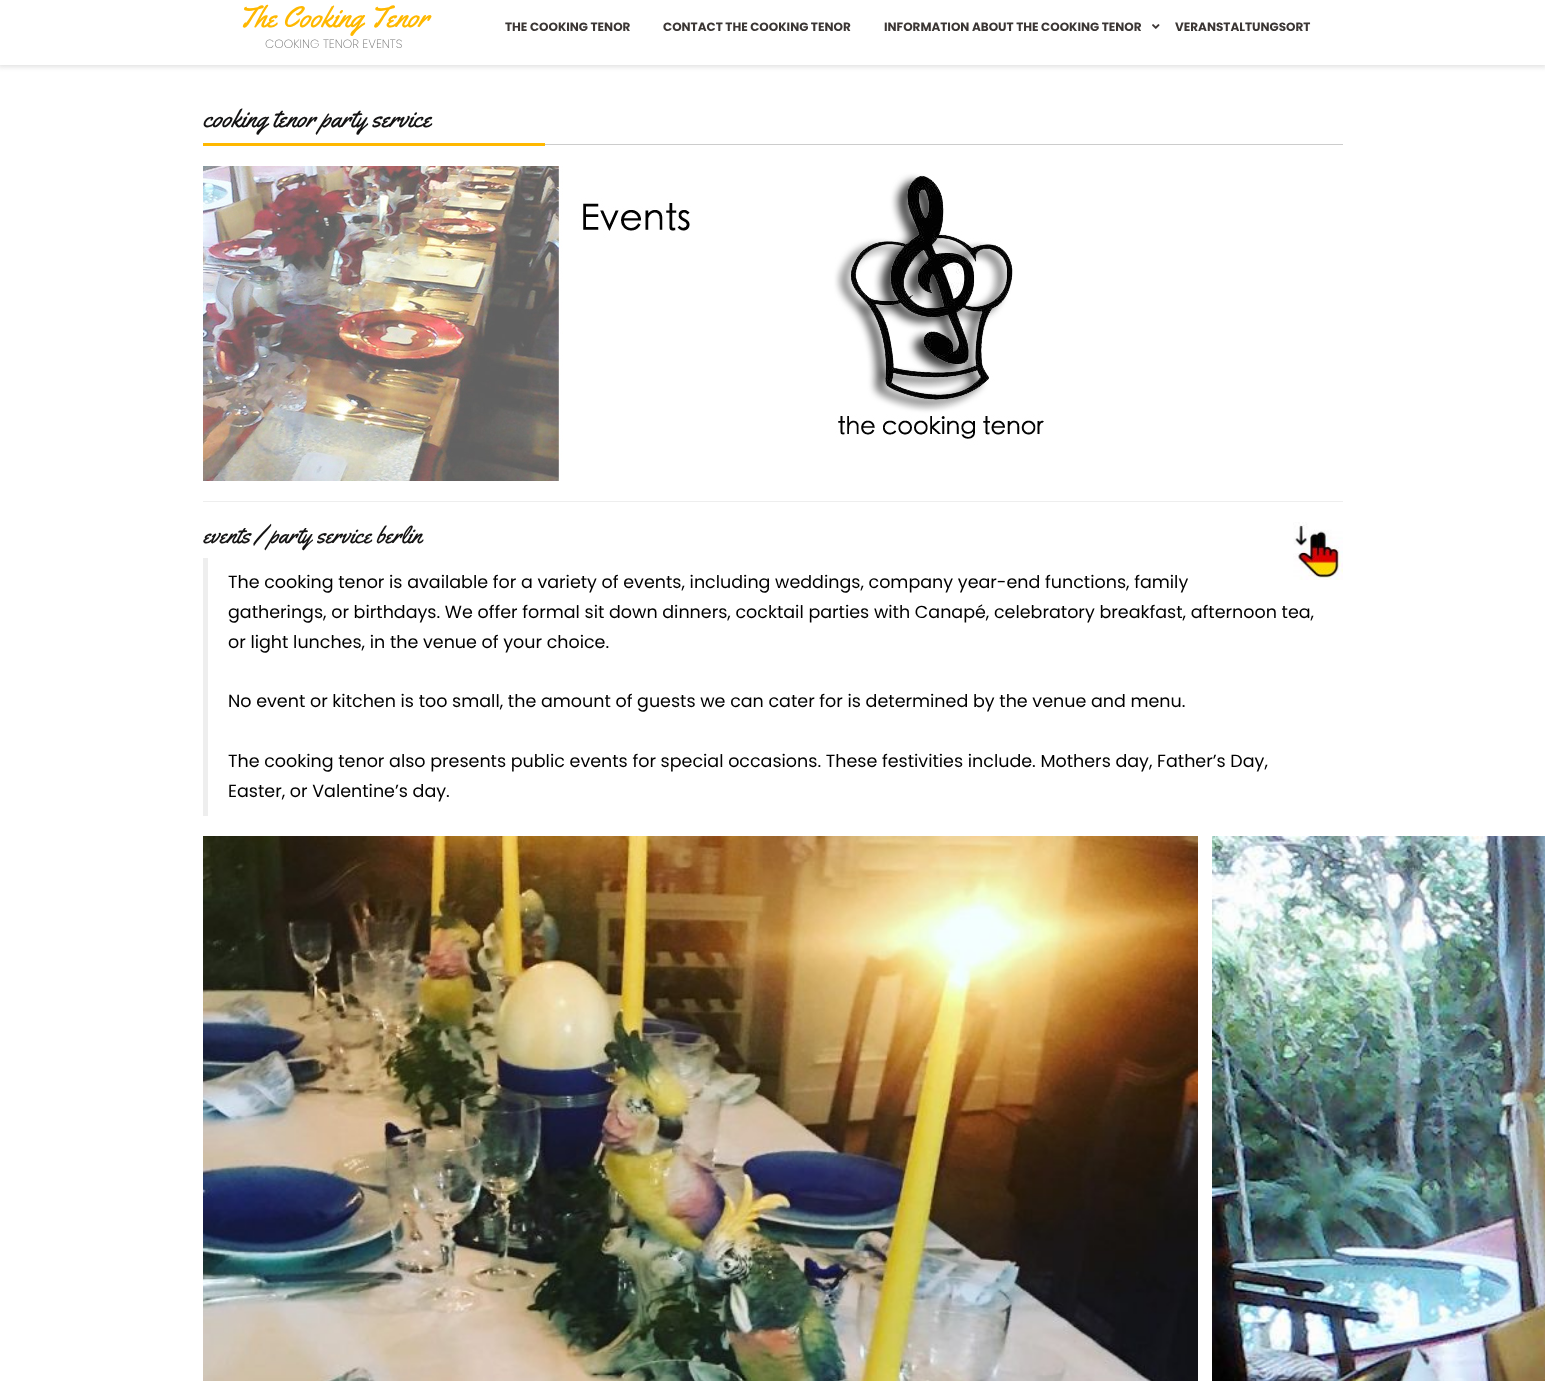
<svg xmlns="http://www.w3.org/2000/svg" width="1545" height="1381" viewBox="0 0 1545 1381">
  <defs>
    <clipPath id="clip1"><rect x="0" y="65" width="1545" height="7"/></clipPath>
  </defs>
  <rect width="100%" height="100%" fill="rgb(255,255,255)"/>
  <g clip-path="url(#clip1)">
    <rect x="-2" y="-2" width="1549" height="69" fill="rgb(225,225,225)" filter="blur(2.5px)"/>
  </g>
  <text x="238" y="27" font-family="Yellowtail" font-size="30" fill="rgb(255,184,0)">The Cooking Tenor</text>
  <text x="265" y="48" font-family="Poppins" font-size="12" font-weight="200" fill="rgb(119,119,119)">COOKING TENOR EVENTS</text>
  <g font-family="Poppins" font-size="12" font-weight="bold" fill="rgb(59,54,52)">
    <text x="505" y="31">THE COOKING TENOR</text>
    <text x="663" y="31">CONTACT THE COOKING TENOR</text>
    <text x="884" y="31">INFORMATION ABOUT THE COOKING TENOR</text>
  </g>
  <image x="1152" y="24" width="8" height="5" href="pic1.png"/>
  <text x="1175" y="31" font-family="Poppins" font-size="12" font-weight="bold" fill="rgb(59,54,52)">VERANSTALTUNGSORT</text>
  <rect x="545" y="144" width="798" height="1" fill="rgb(204,204,204)"/>
  <text x="203" y="127" font-family="Yellowtail" font-size="26" fill="rgb(20,19,19)">cooking tenor party service</text>
  <rect x="203" y="143" width="342" height="3" fill="rgb(255,184,0)"/>
  <image x="203" y="166" width="841" height="315" href="pic2.png"/>
  <rect x="203" y="501" width="1140" height="1" fill="rgb(238,238,238)"/>
  <text x="203" y="543" font-family="Yellowtail" font-size="24" fill="rgb(20,19,19)">events / party service berlin</text>
  <image x="1293" y="522" width="50" height="58" href="pic3.png"/>
  <rect x="203" y="558" width="5" height="258" fill="rgb(238,238,238)"/>
  <g font-family="Poppins" font-size="17.5" fill="rgb(0,0,0)">
    <text>
      <tspan x="228" y="588">The cooking tenor is available for a variety of events, including weddings, company year-end functions, family</tspan>
      <tspan x="228" y="618">gatherings, or birthdays. We offer formal sit down dinners, cocktail parties with Canapé, celebratory breakfast, afternoon tea,</tspan>
      <tspan x="228" y="648">or light lunches, in the venue of your choice.</tspan>
    </text>
    <text x="228" y="707">No event or kitchen is too small, the amount of guests we can cater for is determined by the venue and menu.</text>
    <text>
      <tspan x="228" y="767">The cooking tenor also presents public events for special occasions. These festivities include. Mothers day, Father’s Day,</tspan>
      <tspan x="228" y="797">Easter, or Valentine’s day.</tspan>
    </text>
  </g>
  <image x="203" y="836" width="995" height="545" href="pic4.png"/>
  <image x="1212" y="836" width="333" height="545" href="pic5.png"/>
</svg>
